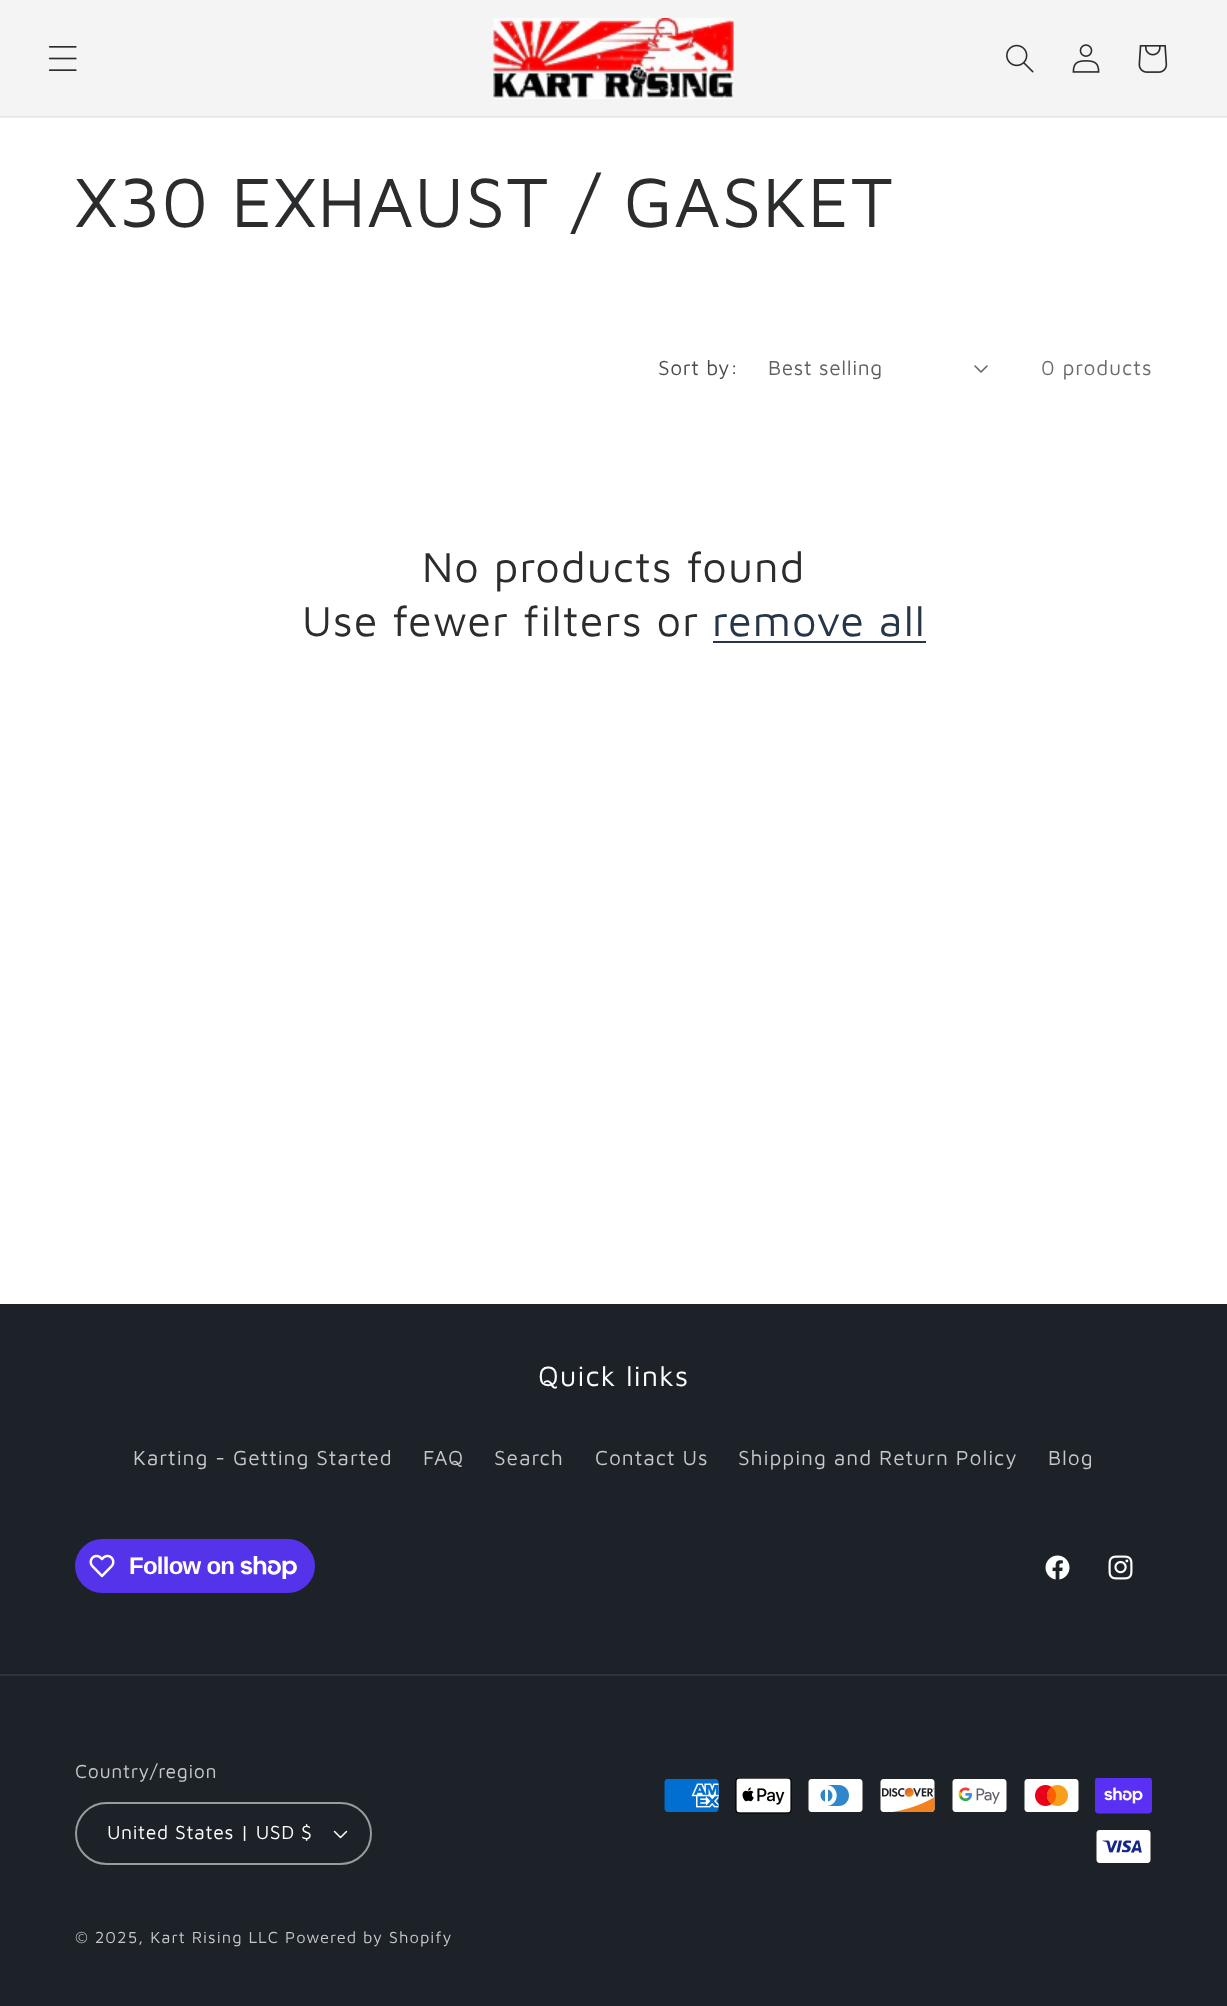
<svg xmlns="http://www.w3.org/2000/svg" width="1227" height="2006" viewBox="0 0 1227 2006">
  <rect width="100%" height="100%" fill="rgb(255,255,255)"/>
  <rect x="0" y="117" width="1227" height="1" fill="rgb(238,238,238)"/>
  <rect x="0" y="0" width="1227" height="116" fill="rgb(244,244,244)"/>
  <rect x="0" y="116" width="1227" height="1" fill="rgb(228,228,228)"/>
  <image x="48" y="46" width="29" height="25" href="pic1.png"/>
  <image x="493" y="18" width="241" height="81" href="pic2.png"/>
  <image x="1006" y="44" width="28" height="29" href="pic3.png"/>
  <image x="1072" y="44" width="28" height="29" href="pic4.png"/>
  <image x="1138" y="45" width="30" height="28" href="pic5.png"/>
  <text x="75" y="227" font-family="Maven Pro" font-size="72" letter-spacing="1.1" fill="rgb(43,44,45)">X30 EXHAUST / GASKET</text>
  <text x="658" y="375" font-family="Maven Pro" font-size="21" letter-spacing="0.6" fill="rgb(75,76,77)">Sort by:</text>
  <text x="768" y="375" font-family="Maven Pro" font-size="21" letter-spacing="0.6" fill="rgb(96,97,98)">Best selling</text>
  <image x="974" y="365" width="14" height="8" href="pic6.png"/>
  <text x="1041" y="375" font-family="Maven Pro" font-size="21" letter-spacing="0.9" fill="rgb(107,107,108)">0 products</text>
  <g font-family="Maven Pro" font-size="43.25" letter-spacing="1.1" fill="rgb(43,44,45)">
    <text x="422" y="582">No products found</text>
    <text x="302" y="636">Use fewer filters or</text>
  </g>
  <text x="712" y="636" font-family="Maven Pro" font-size="43.25" letter-spacing="1.1" fill="rgb(38,53,72)">remove all</text>
  <rect x="713" y="641" width="213" height="2" fill="rgb(38,53,72)"/>
  <rect x="0" y="1304" width="1227" height="702" fill="rgb(28,34,40)"/>
  <text x="538" y="1386" font-family="Maven Pro" font-size="28.75" letter-spacing="1.1" fill="rgb(255,255,255)">Quick links</text>
  <g font-family="Maven Pro" font-size="21" letter-spacing="0.9" fill="rgb(198,200,201)">
    <text x="133" y="1465">Karting - Getting Started</text>
    <text x="423" y="1465">FAQ</text>
    <text x="494" y="1465">Search</text>
    <text x="595" y="1465">Contact Us</text>
    <text x="738" y="1465">Shipping and Return Policy</text>
    <text x="1048" y="1465">Blog</text>
  </g>
  <rect x="75" y="1539" width="240" height="54" rx="27" fill="rgb(84,51,235)"/>
  <image x="89" y="1554" width="26" height="24" href="pic7.png"/>
  <text x="129" y="1574" font-family="Liberation Sans" font-size="24" font-weight="bold" letter-spacing="-0.75" fill="rgb(255,255,255)">Follow on</text>
  <image x="240" y="1556" width="57" height="23" href="pic8.png"/>
  <image x="1045" y="1555" width="25" height="25" href="pic9.png"/>
  <image x="1108" y="1555" width="25" height="25" href="pic10.png"/>
  <rect x="0" y="1674" width="1227" height="2" fill="rgb(46,52,57)"/>
  <text x="75" y="1778" font-family="Maven Pro" font-size="19.5" letter-spacing="0.6" fill="rgb(198,200,201)">Country/region</text>
  <image x="333" y="1830" width="15" height="9" href="pic11.png"/>
  <rect x="76" y="1803" width="295" height="61" rx="30.5" fill="none" stroke="rgb(153,156,158)" stroke-width="2"/>
  <text x="107" y="1839" font-family="Maven Pro" font-size="19.5" letter-spacing="0.6" fill="rgb(255,255,255)">United States | USD $</text>
  <image x="664" y="1779" width="55" height="33" href="pic12.png"/>
  <image x="735" y="1778" width="57" height="36" href="pic13.png"/>
  <image x="808" y="1779" width="55" height="33" href="pic14.png"/>
  <image x="880" y="1779" width="55" height="33" href="pic15.png"/>
  <image x="952" y="1779" width="55" height="33" href="pic16.png"/>
  <image x="1024" y="1779" width="55" height="33" href="pic17.png"/>
  <image x="1095" y="1778" width="57" height="36" href="pic18.png"/>
  <image x="1096" y="1830" width="55" height="33" href="pic19.png"/>
  <g font-family="Maven Pro" font-size="16.5" letter-spacing="1.05" fill="rgb(198,200,201)">
    <text x="75" y="1943">© 2025, Kart Rising LLC</text>
    <text x="285" y="1943">Powered by Shopify</text>
  </g>
</svg>
